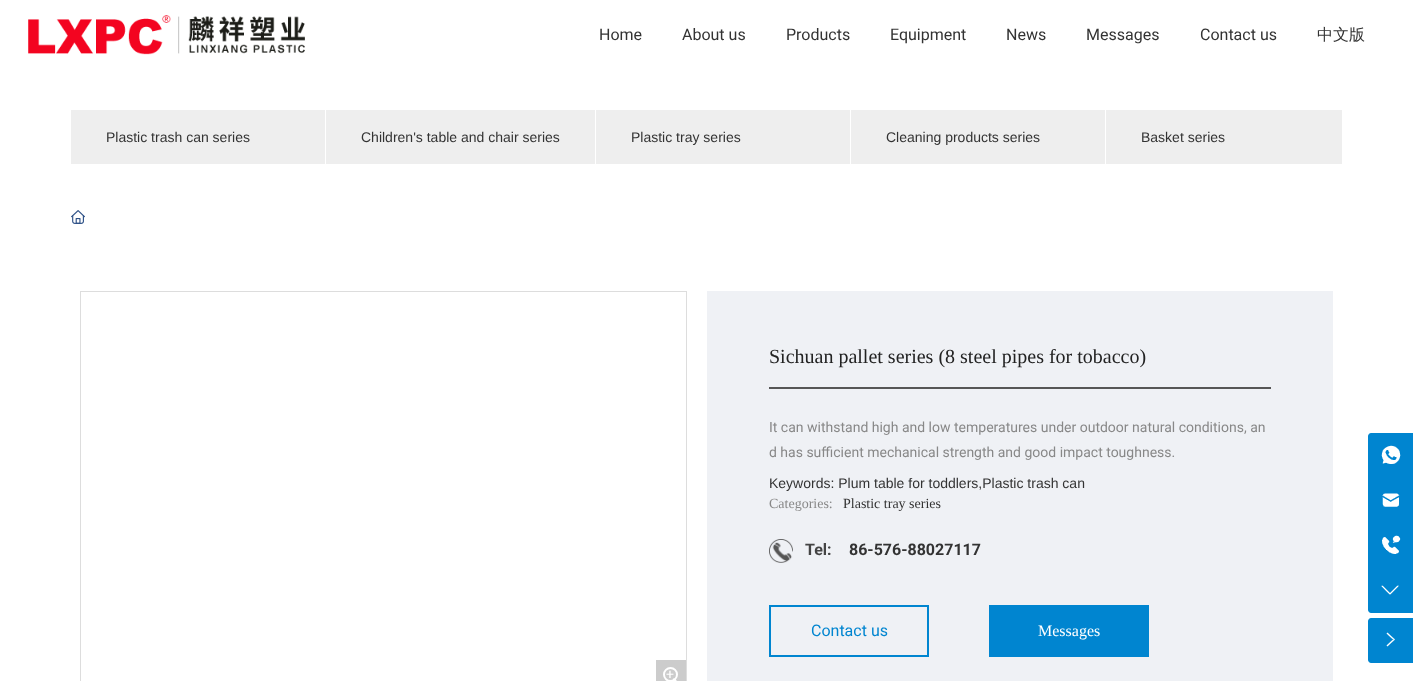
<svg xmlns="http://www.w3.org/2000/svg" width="1413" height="681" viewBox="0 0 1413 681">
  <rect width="100%" height="100%" fill="rgb(255,255,255)"/>
  <rect x="0" y="0" width="1413" height="70" fill="rgb(136,136,136)" filter="blur(0.5px)"/>
  <rect x="0" y="0" width="1413" height="70" fill="rgb(255,255,255)"/>
  <image x="28" y="15" width="277" height="40" href="pic1.png"/>
  <g font-family="Roboto" font-size="16" fill="rgb(51,51,51)">
    <text x="599" y="40">Home</text>
    <text x="682" y="40">About us</text>
    <text x="786" y="40">Products</text>
    <text x="890" y="40">Equipment</text>
    <text x="1006" y="40">News</text>
    <text x="1086" y="40">Messages</text>
    <text x="1200" y="40">Contact us</text>
  </g>
  <text x="1317" y="40" font-family="WenQuanYi Zen Hei" font-size="16" font-weight="500" fill="rgb(51,51,51)">中文版</text>
  <rect x="71" y="110" width="254" height="54" fill="rgb(238,238,238)"/>
  <text x="106" y="142" font-family="Liberation Sans" font-size="14" fill="rgb(51,51,51)">Plastic trash can series</text>
  <rect x="326" y="110" width="269" height="54" fill="rgb(238,238,238)"/>
  <text x="361" y="142" font-family="Liberation Sans" font-size="14" fill="rgb(51,51,51)">Children's table and chair series</text>
  <rect x="596" y="110" width="254" height="54" fill="rgb(238,238,238)"/>
  <text x="631" y="142" font-family="Liberation Sans" font-size="14" fill="rgb(51,51,51)">Plastic tray series</text>
  <rect x="851" y="110" width="254" height="54" fill="rgb(238,238,238)"/>
  <text x="886" y="142" font-family="Liberation Sans" font-size="14" fill="rgb(51,51,51)">Cleaning products series</text>
  <rect x="1106" y="110" width="236" height="54" fill="rgb(238,238,238)"/>
  <text x="1141" y="142" font-family="Liberation Sans" font-size="14" fill="rgb(51,51,51)">Basket series</text>
  <image x="71" y="210" width="14" height="14" href="pic2.png"/>
  <rect x="707" y="291" width="626" height="390" fill="rgb(239,241,245)"/>
  <text x="769" y="363" font-family="Liberation Serif" font-size="20" fill="rgb(34,34,34)">Sichuan pallet series (8 steel pipes for tobacco)</text>
  <rect x="769" y="387" width="502" height="2" fill="rgb(86,86,86)"/>
  <g font-family="Roboto" font-size="14" fill="rgb(136,136,136)">
    <text>
      <tspan x="769" y="432">It can withstand high and low temperatures under outdoor natural conditions, an</tspan>
      <tspan x="769" y="457">d has sufficient mechanical strength and good impact toughness.</tspan>
    </text>
  </g>
  <text x="769" y="488" font-family="Liberation Sans" font-size="14" fill="rgb(51,51,51)">Keywords: Plum table for toddlers,Plastic trash can</text>
  <text x="769" y="508" font-family="Liberation Serif" font-size="14" fill="rgb(136,136,136)">Categories:</text>
  <text x="843" y="508" font-family="Liberation Serif" font-size="14" fill="rgb(51,51,51)">Plastic tray series</text>
  <image x="769" y="539" width="24" height="24" href="pic3.png"/>
  <text x="805" y="555" font-family="Roboto" font-size="16" font-weight="bold" fill="rgb(68,68,68)">Tel:</text>
  <text x="849" y="555" font-family="Roboto" font-size="16" font-weight="bold" fill="rgb(51,51,51)">86-576-88027117</text>
  <rect x="770" y="606" width="158" height="50" fill="none" stroke="rgb(0,133,208)" stroke-width="2"/>
  <text x="811" y="636" font-family="Roboto" font-size="16" fill="rgb(0,133,208)">Contact us</text>
  <rect x="989" y="605" width="160" height="52" fill="rgb(0,133,208)"/>
  <text x="1038" y="636" font-family="Liberation Serif" font-size="16" fill="rgb(255,255,255)">Messages</text>
  <rect x="80.5" y="291.5" width="606" height="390" fill="none" stroke="rgb(221,221,221)"/>
  <rect x="656" y="660" width="30" height="21" fill="rgb(204,204,204)"/>
  <circle cx="670.5" cy="674.5" r="6.5" fill="none" stroke="rgb(255,255,255)" stroke-width="2"/>
  <text x="666" y="679" font-family="Roboto" font-size="14" fill="rgb(255,255,255)">+</text>
  <path d="M674 678L677.5 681.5L676 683L672.5 679.5Z" fill="rgb(255,255,255)"/>
  <path d="M1371 433H1413V613H1371C1369.5 613 1368 611.5 1368 610V436C1368 434.5 1369.5 433 1371 433Z" fill="rgb(0,133,208)"/>
  <image x="1381" y="445" width="20" height="19" href="pic4.png"/>
  <image x="1382" y="493" width="18" height="14" href="pic5.png"/>
  <image x="1382" y="535" width="19" height="19" href="pic6.png"/>
  <image x="1381" y="585" width="18" height="10" href="pic7.png"/>
  <path d="M1371 618H1413V663H1371C1369.5 663 1368 661.5 1368 660V621C1368 619.5 1369.5 618 1371 618Z" fill="rgb(0,133,208)"/>
  <image x="1386" y="632" width="9" height="15" href="pic8.png"/>
</svg>
